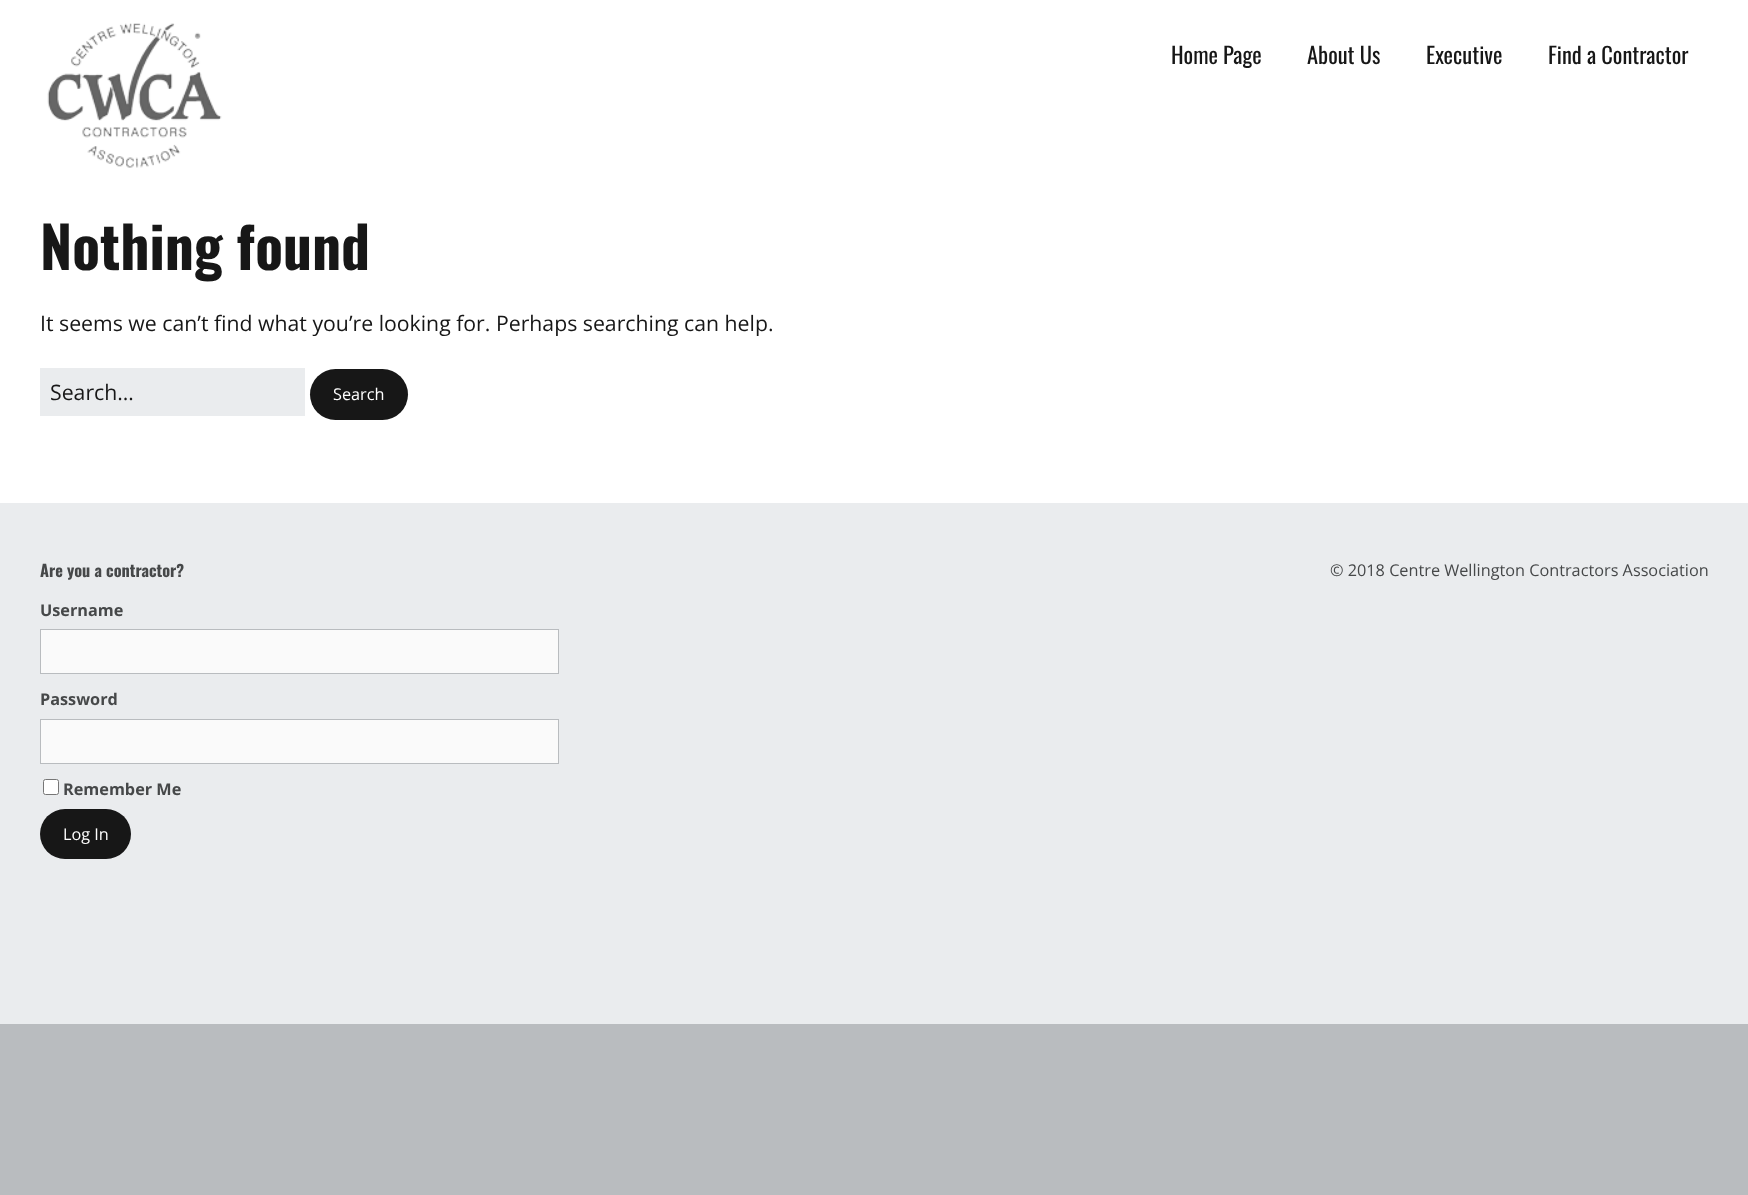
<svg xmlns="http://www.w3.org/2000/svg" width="1748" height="1195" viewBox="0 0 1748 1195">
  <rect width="100%" height="100%" fill="rgb(185,188,191)"/>
  <rect x="0" y="0" width="1748" height="503" fill="rgb(255,255,255)"/>
  <image x="47" y="23" width="175" height="145" href="pic1.png"/>
  <g font-family="Oswald" font-size="22.5" fill="rgb(23,23,23)">
    <text x="1171" y="64">Home Page</text>
    <text x="1307" y="64">About Us</text>
    <text x="1426" y="64">Executive</text>
    <text x="1548" y="64">Find a Contractor</text>
  </g>
  <text x="40" y="270" word-spacing="-1" font-family="Oswald" font-size="57.5" font-weight="bold" fill="rgb(23,23,23)">Nothing found</text>
  <text x="40" y="331" font-family="Open Sans" font-size="21.25" fill="rgb(23,23,23)">It seems we can’t find what you’re looking for. Perhaps searching can help.</text>
  <rect x="40" y="368" width="265" height="48" fill="rgb(234,236,238)"/>
  <text x="50" y="400" font-family="Open Sans" font-size="21.25" fill="rgb(23,23,23)">Search…</text>
  <rect x="310" y="369" width="98" height="51" rx="25.5" fill="rgb(23,23,23)"/>
  <text x="333" y="400" font-family="Open Sans" font-size="16.25" fill="rgb(255,255,255)">Search</text>
  <rect x="0" y="503" width="1748" height="521" fill="rgb(234,236,238)"/>
  <text x="40" y="577" font-family="Oswald" font-size="16.25" font-weight="bold" fill="rgb(70,72,73)">Are you a contractor?</text>
  <text x="40" y="616" font-family="Open Sans" font-size="16.25" font-weight="bold" fill="rgb(70,72,73)">Username</text>
  <rect x="40.5" y="629.5" width="518" height="44" fill="rgb(250,250,250)" stroke="rgb(185,188,191)"/>
  <text x="40" y="705" font-family="Open Sans" font-size="16.25" font-weight="bold" fill="rgb(70,72,73)">Password</text>
  <rect x="40.5" y="719.5" width="518" height="44" fill="rgb(250,250,250)" stroke="rgb(185,188,191)"/>
  <rect x="43.5" y="779.5" width="15" height="15" rx="2" fill="rgb(255,255,255)" stroke="rgb(118,118,118)"/>
  <text x="63" y="795" font-family="Open Sans" font-size="16.25" font-weight="bold" fill="rgb(70,72,73)">Remember Me</text>
  <rect x="40" y="809" width="91" height="50" rx="25" fill="rgb(23,23,23)"/>
  <text x="63" y="840" font-family="Open Sans" font-size="16.25" fill="rgb(255,255,255)">Log In</text>
  <text x="1330" y="576" font-family="Open Sans" font-size="16.25" fill="rgb(70,72,73)">© 2018 Centre Wellington Contractors Association</text>
</svg>
